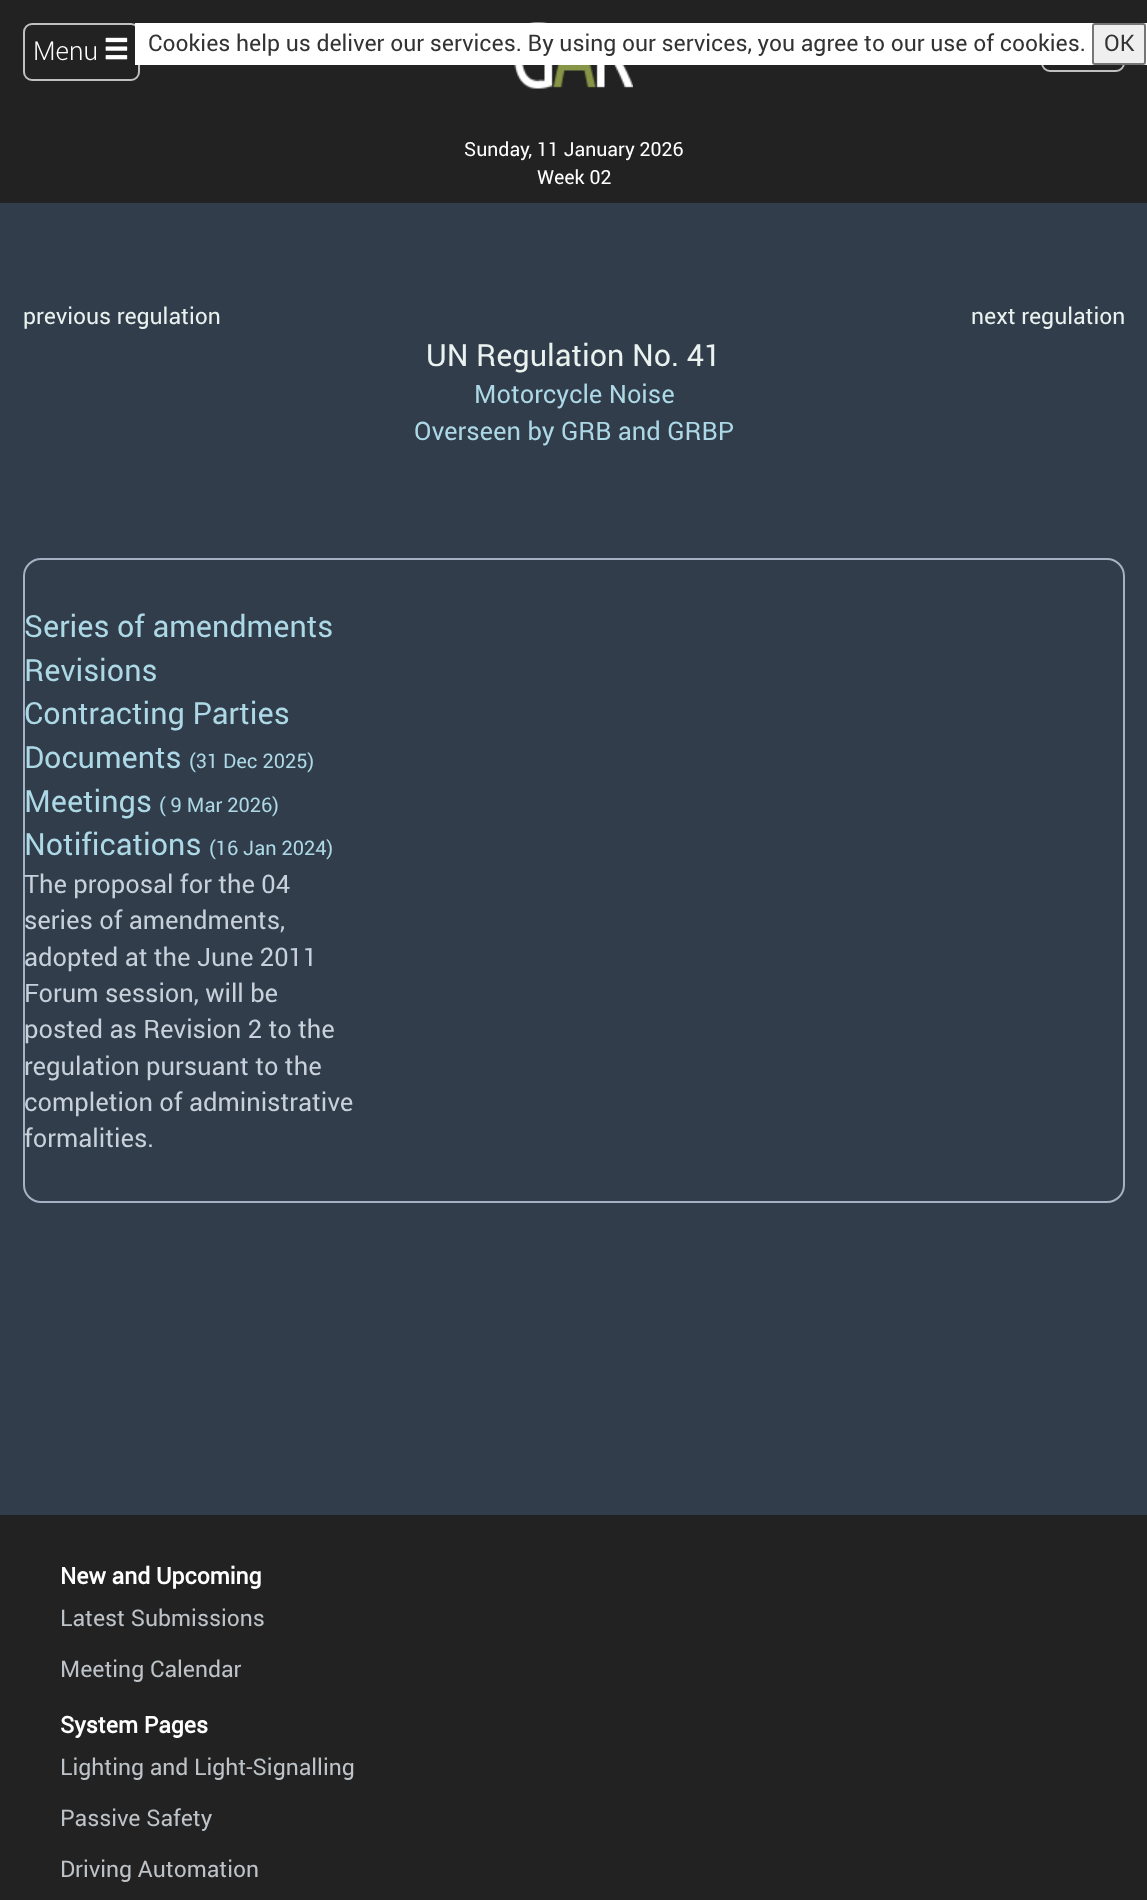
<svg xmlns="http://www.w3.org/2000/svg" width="1147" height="1900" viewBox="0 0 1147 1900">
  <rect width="100%" height="100%" fill="rgb(49,61,75)"/>
  <rect x="0" y="0" width="1147" height="203" fill="rgb(34,34,34)"/>
  <rect x="1042" y="24" width="82" height="47" rx="8" fill="none" stroke="rgb(192,192,192)" stroke-width="2"/>
  <rect x="24" y="24" width="115" height="56" rx="8" fill="none" stroke="rgb(192,192,192)" stroke-width="2"/>
  <text x="33" y="60" font-family="Roboto" font-size="26" font-weight="300" fill="rgb(255,255,255)">Menu</text>
  <image x="105" y="37" width="23" height="23" href="pic1.png"/>
  <image x="514" y="22" width="119" height="67" href="pic2.png"/>
  <rect x="135" y="23" width="1012" height="42" fill="rgb(255,255,255)"/>
  <text x="148" y="51" font-family="Roboto" font-size="22.95" fill="rgb(51,51,51)">Cookies help us deliver our services. By using our services, you agree to our use of cookies.</text>
  <rect x="1093" y="24" width="52" height="40" rx="2" fill="rgb(239,239,239)" stroke="rgb(118,118,118)" stroke-width="2"/>
  <text x="1104" y="51" font-family="Roboto" font-size="22.95" fill="rgb(51,51,51)">OK</text>
  <g font-family="Roboto" font-size="19.5" fill="rgb(255,255,255)">
    <text x="464" y="156">Sunday, 11 January 2026</text>
    <text x="537" y="184">Week 02</text>
  </g>
  <g font-family="Roboto" font-size="22.95" fill="rgb(234,242,240)">
    <text x="23" y="324">previous regulation</text>
    <text x="971" y="324">next regulation</text>
  </g>
  <text x="426" y="366" font-family="Roboto" font-size="30.5" fill="rgb(234,242,240)">UN Regulation No. 41</text>
  <g font-family="Roboto" font-size="25.5" fill="rgb(173,216,230)">
    <text x="474" y="403">Motorcycle Noise</text>
    <text x="414" y="440">Overseen by GRB and GRBP</text>
  </g>
  <rect x="24" y="559" width="1100" height="643" rx="17" fill="none" stroke="rgb(164,178,195)" stroke-width="2"/>
  <g font-family="Roboto" font-size="30.5" fill="rgb(173,216,230)">
    <text>
      <tspan x="24" y="637">Series of amendments</tspan>
      <tspan x="24" y="681">Revisions</tspan>
      <tspan x="24" y="724">Contracting Parties</tspan>
      <tspan x="24" y="768">Documents</tspan>
    </text>
  </g>
  <text x="189" y="768" font-family="Roboto" font-size="20" fill="rgb(173,216,230)">(31 Dec 2025)</text>
  <text x="24" y="812" font-family="Roboto" font-size="30.5" fill="rgb(173,216,230)">Meetings</text>
  <text x="159" y="812" font-family="Roboto" font-size="20" fill="rgb(173,216,230)">( 9 Mar 2026)</text>
  <text x="24" y="855" font-family="Roboto" font-size="30.5" fill="rgb(173,216,230)">Notifications</text>
  <text x="209" y="855" font-family="Roboto" font-size="20" fill="rgb(173,216,230)">(16 Jan 2024)</text>
  <g font-family="Roboto" font-size="25.5" fill="rgb(199,208,219)">
    <text>
      <tspan x="24" y="893">The proposal for the 04</tspan>
      <tspan x="24" y="929">series of amendments,</tspan>
      <tspan x="24" y="966">adopted at the June 2011</tspan>
      <tspan x="24" y="1002">Forum session, will be</tspan>
      <tspan x="24" y="1038">posted as Revision 2 to the</tspan>
      <tspan x="24" y="1075">regulation pursuant to the</tspan>
      <tspan x="24" y="1111">completion of administrative</tspan>
      <tspan x="24" y="1147">formalities.</tspan>
    </text>
  </g>
  <rect x="0" y="1515" width="1147" height="385" fill="rgb(34,34,34)"/>
  <text x="60" y="1584" font-family="Roboto" font-size="22.95" font-weight="bold" fill="rgb(255,255,255)">New and Upcoming</text>
  <g font-family="Roboto" font-size="22.95" fill="rgb(189,195,199)">
    <text x="60" y="1626">Latest Submissions</text>
    <text x="60" y="1677">Meeting Calendar</text>
  </g>
  <text x="60" y="1733" font-family="Roboto" font-size="22.95" font-weight="bold" fill="rgb(255,255,255)">System Pages</text>
  <g font-family="Roboto" font-size="22.95" fill="rgb(189,195,199)">
    <text x="60" y="1775">Lighting and Light-Signalling</text>
    <text x="60" y="1826">Passive Safety</text>
    <text x="60" y="1877">Driving Automation</text>
  </g>
</svg>
